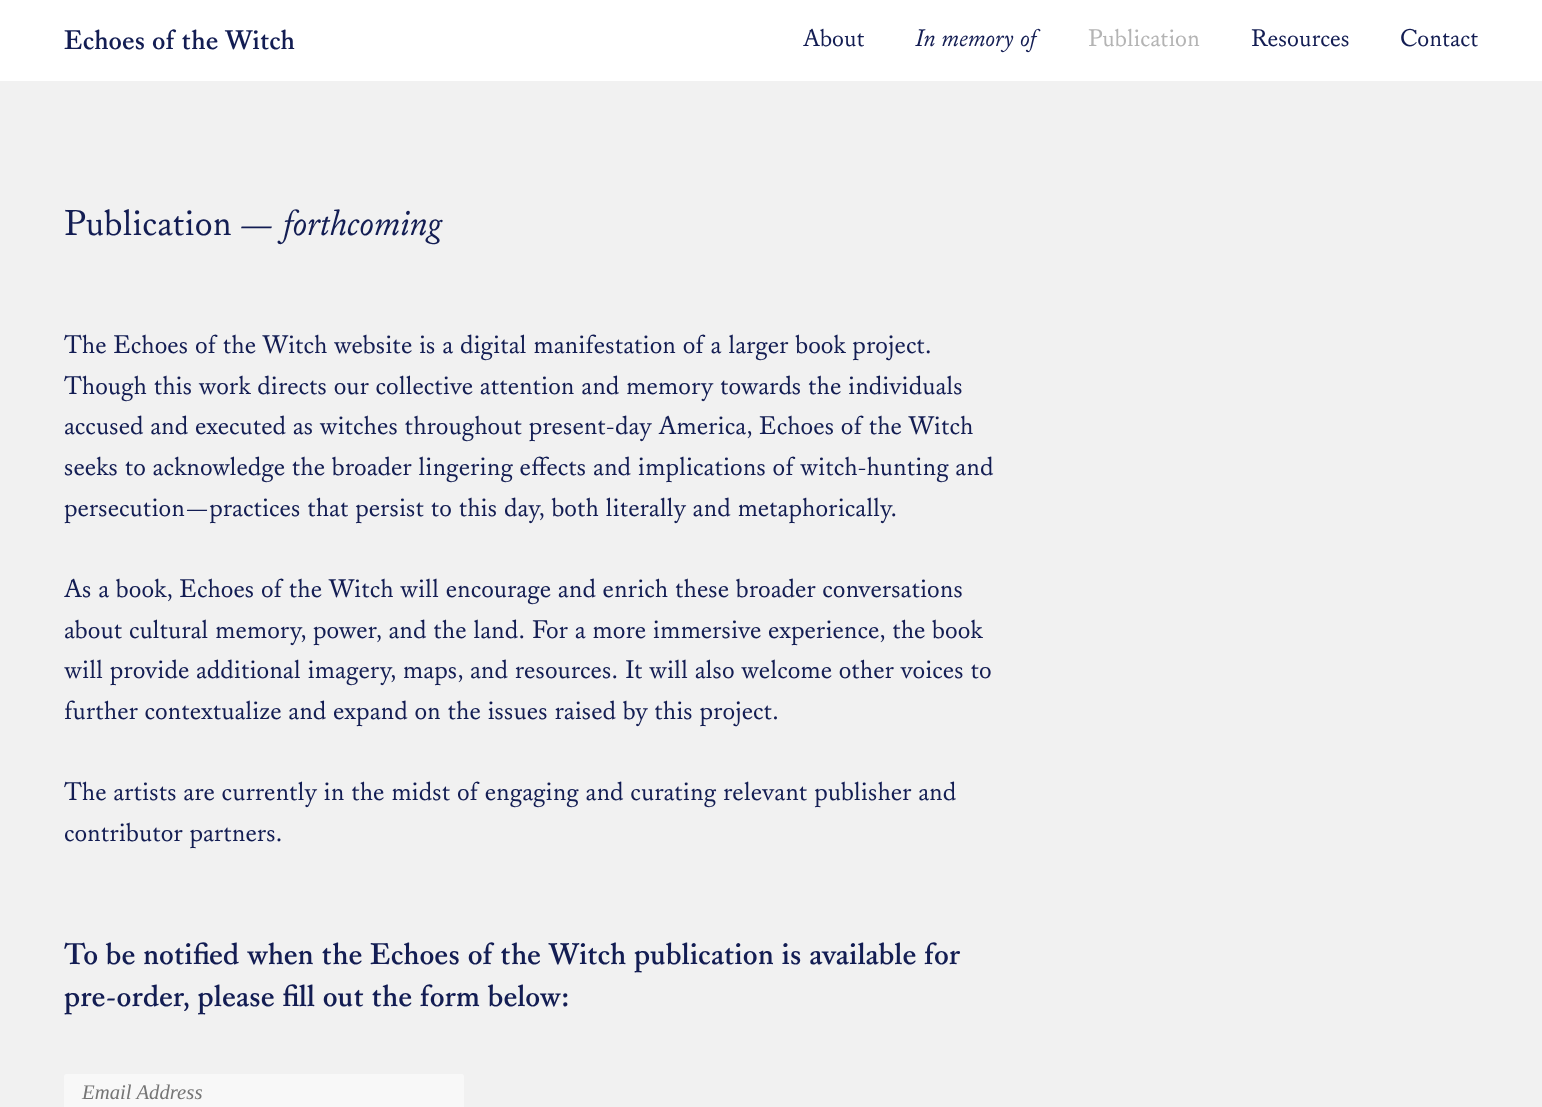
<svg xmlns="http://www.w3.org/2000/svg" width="1542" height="1107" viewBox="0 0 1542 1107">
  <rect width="100%" height="100%" fill="rgb(241,241,241)"/>
  <rect x="0" y="0" width="1542" height="81" fill="rgb(255,255,255)"/>
  <text x="64" y="49" font-family="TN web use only" font-size="28.75" font-weight="bold" fill="rgb(19,29,83)">Echoes of the Witch</text>
  <text x="803" y="46" font-family="TN web use only" font-size="25.5" fill="rgb(19,29,83)">About</text>
  <text x="916" y="46" font-family="TN web use only" font-size="25.5" font-style="italic" fill="rgb(19,29,83)">In memory of</text>
  <text x="1088" y="46" font-family="TN web use only" font-size="25.5" fill="rgb(180,180,180)">Publication</text>
  <g font-family="TN web use only" font-size="25.5" fill="rgb(19,29,83)">
    <text x="1251" y="46">Resources</text>
    <text x="1400" y="46">Contact</text>
  </g>
  <text x="64" y="235" font-family="TN web use only" font-size="38.25" fill="rgb(19,29,83)">Publication</text>
  <text x="241" y="235" font-family="TN web use only" font-size="38.25" font-style="italic" fill="rgb(19,29,83)">— forthcoming</text>
  <g font-family="TN web use only" font-size="27.1" fill="rgb(19,29,83)">
    <text>
      <tspan x="64" y="353">The Echoes of the Witch website is a digital manifestation of a larger book project.</tspan>
      <tspan x="64" y="394">Though this work directs our collective attention and memory towards the individuals</tspan>
      <tspan x="64" y="434">accused and executed as witches throughout present-day America, Echoes of the Witch</tspan>
      <tspan x="64" y="475">seeks to acknowledge the broader lingering effects and implications of witch-hunting and</tspan>
      <tspan x="64" y="516">persecution—practices that persist to this day, both literally and metaphorically.</tspan>
    </text>
    <text>
      <tspan x="64" y="597">As a book, Echoes of the Witch will encourage and enrich these broader conversations</tspan>
      <tspan x="64" y="638">about cultural memory, power, and the land. For a more immersive experience, the book</tspan>
      <tspan x="64" y="678">will provide additional imagery, maps, and resources. It will also welcome other voices to</tspan>
      <tspan x="64" y="719">further contextualize and expand on the issues raised by this project.</tspan>
    </text>
    <text>
      <tspan x="64" y="800">The artists are currently in the midst of engaging and curating relevant publisher and</tspan>
      <tspan x="64" y="841">contributor partners.</tspan>
    </text>
  </g>
  <g font-family="TN web use only" font-size="31.9" font-weight="bold" fill="rgb(19,29,83)">
    <text>
      <tspan x="64" y="964">To be notified when the Echoes of the Witch publication is available for</tspan>
      <tspan x="64" y="1006">pre-order, please fill out the form below:</tspan>
    </text>
  </g>
  <rect x="64" y="1074" width="400" height="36" rx="2.5" fill="rgb(248,248,248)"/>
  <text x="82" y="1099" font-family="Liberation Serif" font-size="20.75" font-style="italic" fill="rgb(117,117,117)">Email Address</text>
</svg>
